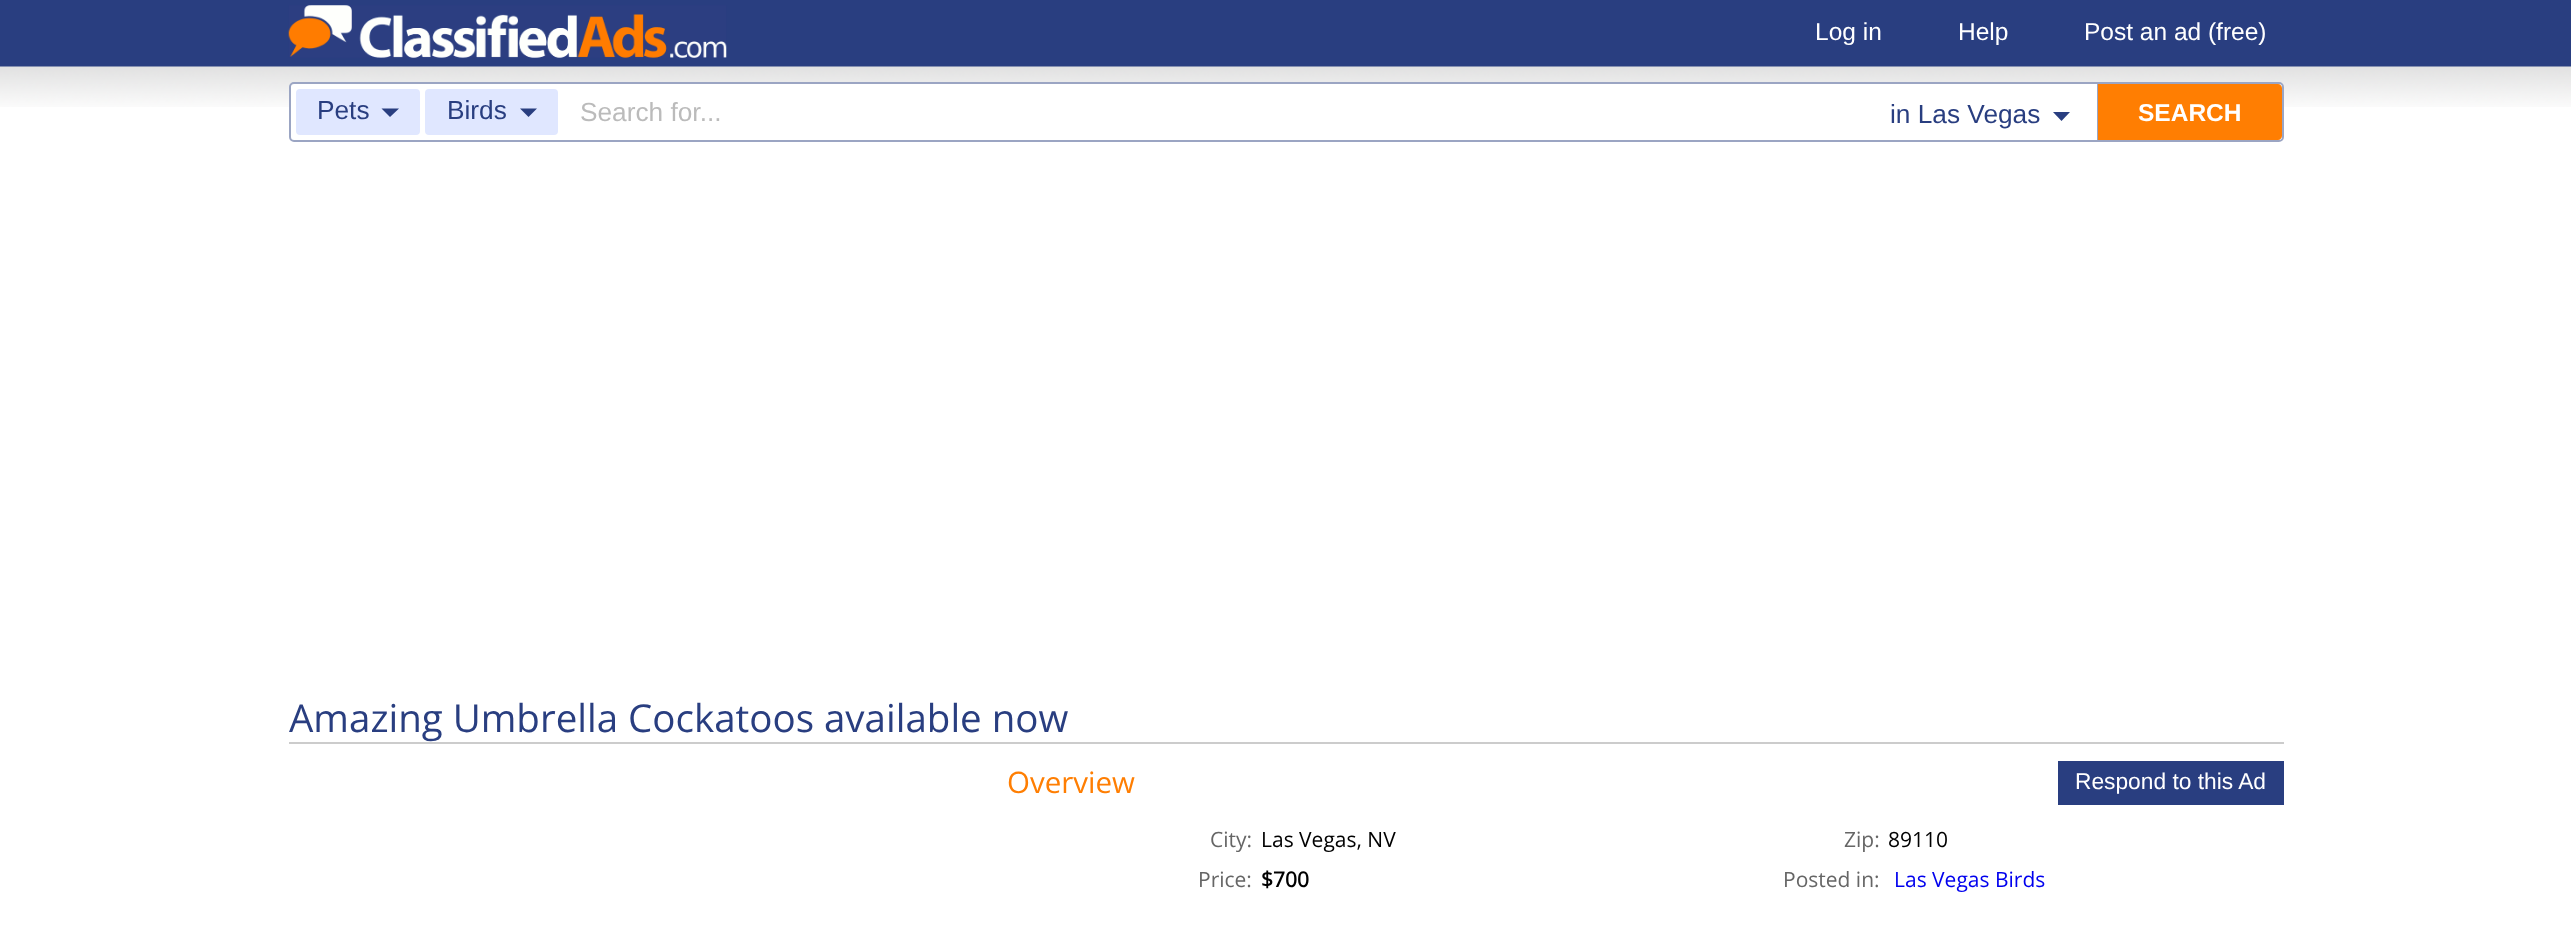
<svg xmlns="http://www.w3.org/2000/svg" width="2571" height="925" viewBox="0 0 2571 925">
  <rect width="100%" height="100%" fill="rgb(255,255,255)"/>
  <rect x="0" y="0" width="2571" height="67" fill="rgb(41,62,128)"/>
  <image x="288" y="5" width="439" height="53" href="pic1.png"/>
  <g font-family="Liberation Sans" font-size="24.5" fill="rgb(255,255,255)">
    <text x="1815" y="40">Log in</text>
    <text x="1958" y="40">Help</text>
    <text x="2084" y="40">Post an ad (free)</text>
  </g>
  <image x="0" y="66" width="2571" height="41" href="pic2.png"/>
  <rect x="290" y="83" width="1993" height="58" rx="4" fill="rgb(255,255,255)" stroke="rgb(155,165,195)" stroke-width="2"/>
  <rect x="296" y="89" width="124" height="46" rx="4" fill="rgb(224,231,255)"/>
  <text x="317" y="119" font-family="Liberation Sans" font-size="26.25" fill="rgb(41,62,128)">Pets</text>
  <path d="M381.5 108.5H399L390 117Z" fill="rgb(41,62,128)"/>
  <rect x="425" y="89" width="133" height="46" rx="4" fill="rgb(224,231,255)"/>
  <text x="447" y="119" font-family="Liberation Sans" font-size="26.25" fill="rgb(41,62,128)">Birds</text>
  <path d="M520 108.5H537L528.5 117Z" fill="rgb(41,62,128)"/>
  <text x="580" y="121" font-family="Liberation Sans" font-size="26.25" fill="rgb(187,187,187)">Search for...</text>
  <text x="1890" y="123" font-family="Liberation Sans" font-size="26.25" fill="rgb(41,62,128)">in Las Vegas</text>
  <path d="M2053 112H2070L2061.5 121Z" fill="rgb(41,62,128)"/>
  <rect x="2097" y="84" width="1" height="56" fill="rgb(155,165,195)"/>
  <path d="M2098 84H2278C2280 84 2282 86 2282 88V136C2282 138 2280 140 2278 140H2098Z" fill="rgb(255,126,2)"/>
  <text x="2138" y="121" font-family="Liberation Sans" font-size="24.5" font-weight="bold" fill="rgb(255,255,255)">SEARCH</text>
  <rect x="289" y="742" width="1995" height="2" fill="rgb(204,204,204)"/>
  <text x="289" y="732" font-family="Open Sans" font-size="38.5" fill="rgb(41,62,128)">Amazing Umbrella Cockatoos available now</text>
  <text x="1007" y="793" font-family="Open Sans" font-size="29.5" fill="rgb(255,126,2)">Overview</text>
  <rect x="2058" y="761" width="226" height="44" fill="rgb(41,62,128)"/>
  <text x="2075" y="789" font-family="Liberation Sans" font-size="22.75" fill="rgb(255,255,255)">Respond to this Ad</text>
  <text x="1210" y="847" font-family="Open Sans" font-size="21" fill="rgb(102,102,102)">City:</text>
  <text x="1261" y="847" font-family="Open Sans" font-size="21" fill="rgb(0,0,0)">Las Vegas, NV</text>
  <text x="1844" y="847" font-family="Open Sans" font-size="21" fill="rgb(102,102,102)">Zip:</text>
  <text x="1888" y="847" font-family="Open Sans" font-size="21" fill="rgb(0,0,0)">89110</text>
  <text x="1198" y="887" font-family="Open Sans" font-size="21" fill="rgb(102,102,102)">Price:</text>
  <text x="1261" y="887" font-family="Open Sans" font-size="21" font-weight="bold" fill="rgb(0,0,0)">$700</text>
  <text x="1783" y="887" font-family="Open Sans" font-size="21" fill="rgb(102,102,102)">Posted in:</text>
  <text x="1894" y="887" font-family="Open Sans" font-size="21" fill="rgb(0,0,238)">Las Vegas Birds</text>
</svg>
